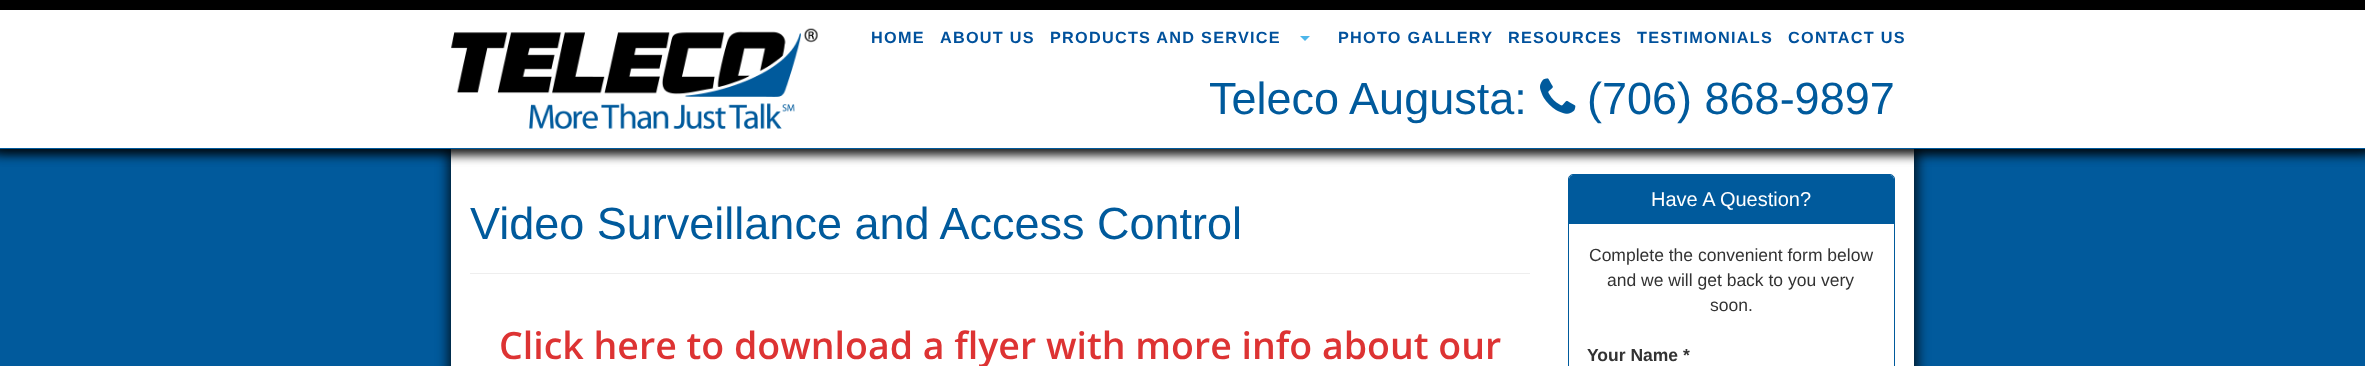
<svg xmlns="http://www.w3.org/2000/svg" width="2365" height="366" viewBox="0 0 2365 366">
  <rect width="100%" height="100%" fill="rgb(1,90,156)"/>
  <rect x="448" y="145" width="1470" height="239" fill="rgba(0,0,0,0.75)" filter="blur(6px)"/>
  <rect x="451" y="149" width="1463" height="217" fill="rgb(255,255,255)"/>
  <rect x="-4" y="-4" width="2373" height="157" fill="rgba(0,0,0,0.75)" filter="blur(6px)"/>
  <rect x="-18" y="-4" width="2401" height="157" fill="rgba(0,0,0,0.75)" filter="blur(6px)"/>
  <rect x="0" y="10" width="2365" height="138" fill="rgb(255,255,255)"/>
  <rect x="0" y="0" width="2365" height="10" fill="rgb(0,0,0)"/>
  <image x="451" y="28" width="367" height="101" href="pic1.png"/>
  <g font-family="Liberation Sans" font-size="16.25" font-weight="bold" letter-spacing="1.25" fill="rgb(0,81,156)">
    <text x="871" y="43">HOME</text>
    <text x="940" y="43">ABOUT US</text>
    <text x="1050" y="43">PRODUCTS AND SERVICE</text>
  </g>
  <path d="M1300 36H1310L1305 41Z" fill="rgb(76,182,234)"/>
  <g font-family="Liberation Sans" font-size="16.25" font-weight="bold" letter-spacing="1.25" fill="rgb(0,81,156)">
    <text x="1338" y="43">PHOTO GALLERY</text>
    <text x="1508" y="43">RESOURCES</text>
    <text x="1637" y="43">TESTIMONIALS</text>
    <text x="1788" y="43">CONTACT US</text>
  </g>
  <text x="1209" y="114" font-family="Liberation Sans" font-size="45" fill="rgb(0,90,156)">Teleco Augusta:</text>
  <image x="1540" y="78" width="36" height="36" href="pic2.png"/>
  <text x="1587" y="114" font-family="Liberation Sans" font-size="45" fill="rgb(0,90,156)">(706) 868-9897</text>
  <rect x="0" y="148" width="2365" height="1" fill="rgb(0,90,156)"/>
  <rect x="470" y="273" width="1060" height="1" fill="rgb(238,238,238)"/>
  <text x="470" y="239" font-family="Liberation Sans" font-size="45" fill="rgb(0,90,156)">Video Surveillance and Access Control</text>
  <text x="499" y="359" font-family="Open Sans" font-size="37.5" font-weight="600" fill="rgb(221,51,51)">Click here to download a flyer with more info about our</text>
  <rect x="1568.5" y="174.5" width="326" height="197" rx="4.5" fill="none" stroke="rgb(0,90,156)"/>
  <path d="M1573 175H1890C1892 175 1894 177 1894 179V224H1569V179C1569 177 1571 175 1573 175Z" fill="rgb(0,90,156)"/>
  <text x="1651" y="206" font-family="Liberation Sans" font-size="20" fill="rgb(255,255,255)">Have A Question?</text>
  <g font-family="Liberation Sans" font-size="17.5" fill="rgb(51,51,51)">
    <text x="1589" y="261">Complete the convenient form below</text>
    <text x="1607" y="286">and we will get back to you very</text>
    <text x="1710" y="311">soon.</text>
  </g>
  <text x="1587" y="361" font-family="Liberation Sans" font-size="17.5" font-weight="bold" fill="rgb(51,51,51)">Your Name *</text>
</svg>
